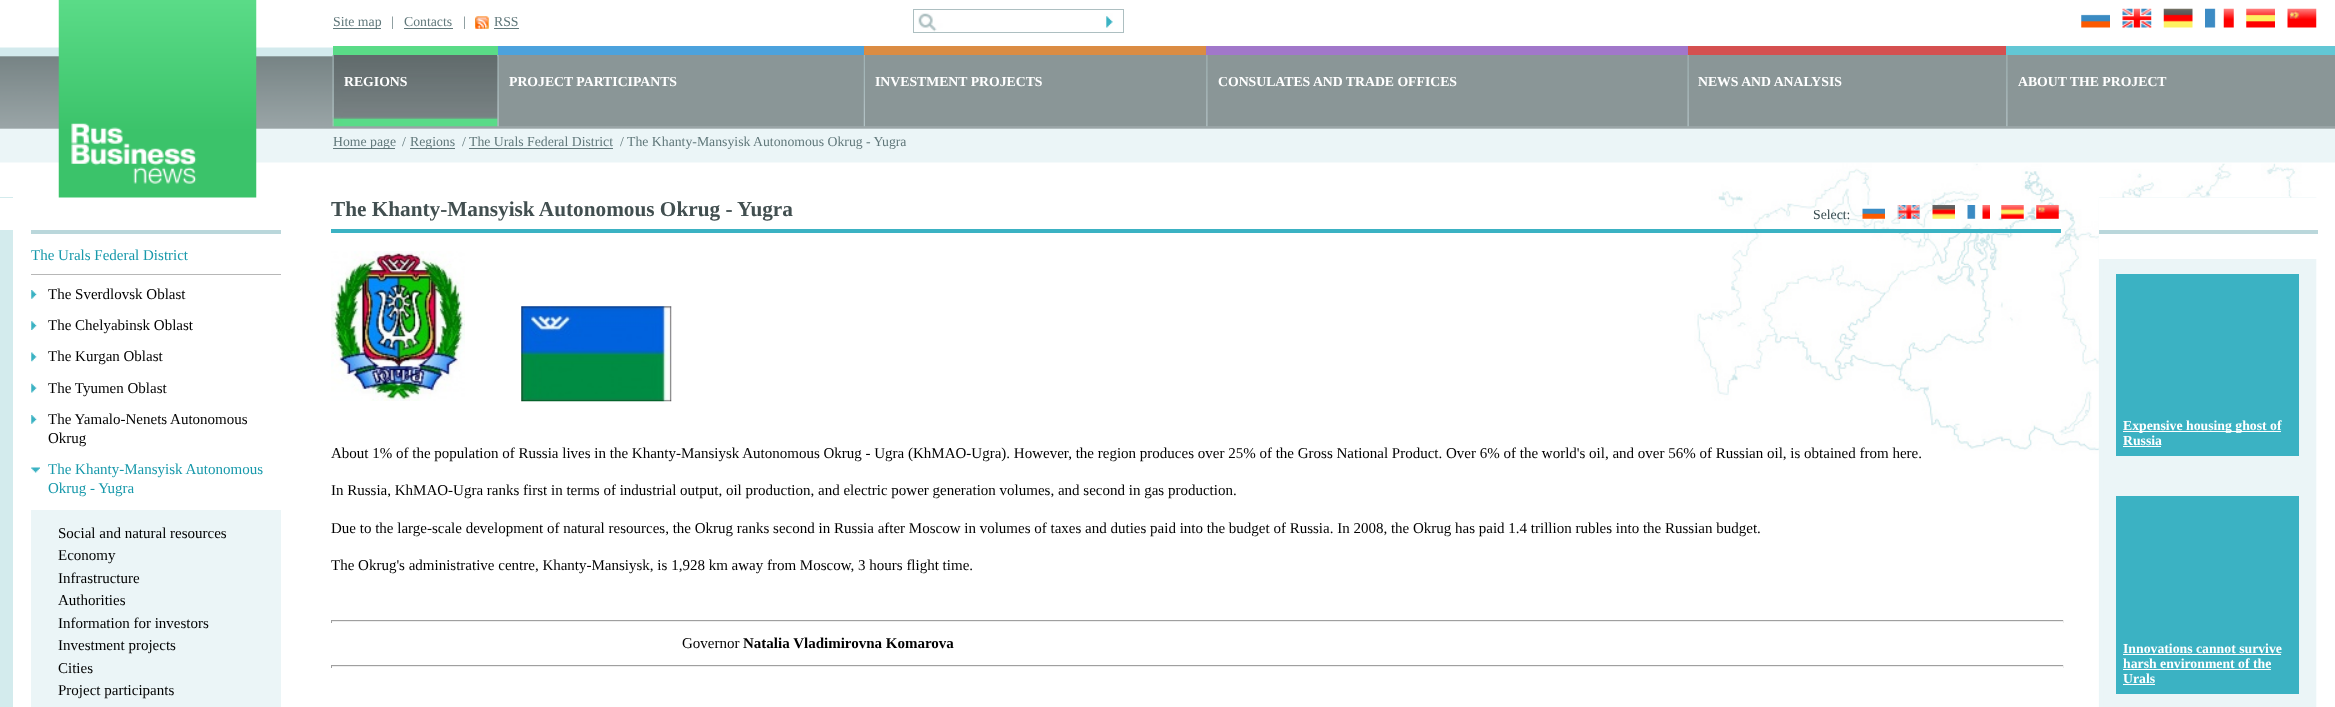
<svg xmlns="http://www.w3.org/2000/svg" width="2335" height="707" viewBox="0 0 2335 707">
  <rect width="100%" height="100%" fill="rgb(255,255,255)"/>
  <image x="1694" y="163" width="639" height="305" href="pic1.png"/>
  <image x="0" y="47" width="2335" height="116" href="pic2.png"/>
  <image x="58" y="0" width="199" height="198" href="pic3.png"/>
  <rect x="333" y="28" width="48" height="1" fill="rgb(97,120,123)"/>
  <g font-family="Liberation Serif" font-size="13.75" fill="rgb(97,120,123)">
    <text x="333" y="26">Site map</text>
    <text x="391" y="26">|</text>
    <text x="404" y="26">Contacts</text>
  </g>
  <rect x="404" y="28" width="49" height="1" fill="rgb(97,120,123)"/>
  <text x="463" y="26" font-family="Liberation Serif" font-size="13.75" fill="rgb(97,120,123)">|</text>
  <image x="475" y="16" width="14" height="13" href="pic4.png"/>
  <text x="494" y="26" font-family="Liberation Serif" font-size="13.75" fill="rgb(97,120,123)">RSS</text>
  <rect x="494" y="28" width="25" height="1" fill="rgb(97,120,123)"/>
  <image x="918" y="13" width="195" height="19" href="pic5.png"/>
  <rect x="913.5" y="9.5" width="210" height="23" fill="none" stroke="rgb(173,191,193)"/>
  <image x="2081" y="14" width="29" height="14" href="pic6.png"/>
  <image x="2122" y="8" width="30" height="20" href="pic7.png"/>
  <image x="2163" y="8" width="30" height="20" href="pic8.png"/>
  <image x="2205" y="8" width="29" height="20" href="pic9.png"/>
  <image x="2246" y="8" width="29" height="20" href="pic10.png"/>
  <image x="2287" y="8" width="30" height="20" href="pic11.png"/>
  <image x="332" y="55" width="166" height="72" href="pic12.png"/>
  <rect x="333" y="46" width="165" height="9" fill="rgb(90,219,135)"/>
  <text x="344" y="86" font-family="Liberation Serif" font-size="13.75" font-weight="bold" fill="rgb(255,255,255)">REGIONS</text>
  <rect x="498" y="55" width="366" height="71" fill="rgb(138,150,151)"/>
  <image x="497" y="55" width="2" height="72" href="pic13.png"/>
  <rect x="498" y="46" width="366" height="9" fill="rgb(76,162,221)"/>
  <text x="509" y="86" font-family="Liberation Serif" font-size="13.75" font-weight="bold" fill="rgb(255,255,255)">PROJECT PARTICIPANTS</text>
  <rect x="865" y="55" width="1470" height="71" fill="rgb(138,150,151)"/>
  <image x="863" y="55" width="2" height="72" href="pic14.png"/>
  <rect x="864" y="46" width="342" height="9" fill="rgb(219,140,67)"/>
  <text x="875" y="86" font-family="Liberation Serif" font-size="13.75" font-weight="bold" fill="rgb(255,255,255)">INVESTMENT PROJECTS</text>
  <image x="1206" y="55" width="2" height="72" href="pic15.png"/>
  <rect x="1206" y="46" width="482" height="9" fill="rgb(161,119,202)"/>
  <text x="1218" y="86" font-family="Liberation Serif" font-size="13.75" font-weight="bold" fill="rgb(255,255,255)">CONSULATES AND TRADE OFFICES</text>
  <image x="1687" y="55" width="2" height="72" href="pic16.png"/>
  <rect x="1688" y="46" width="318" height="9" fill="rgb(213,80,80)"/>
  <text x="1698" y="86" font-family="Liberation Serif" font-size="13.75" font-weight="bold" fill="rgb(255,255,255)">NEWS AND ANALYSIS</text>
  <image x="2006" y="55" width="2" height="72" href="pic15.png"/>
  <rect x="2006" y="46" width="329" height="9" fill="rgb(98,199,213)"/>
  <text x="2018" y="86" font-family="Liberation Serif" font-size="13.75" font-weight="bold" fill="rgb(255,255,255)">ABOUT THE PROJECT</text>
  <rect x="333" y="148" width="62" height="1" fill="rgb(97,120,123)"/>
  <g font-family="Liberation Serif" font-size="13.75" fill="rgb(97,120,123)">
    <text x="333" y="146">Home page</text>
    <text x="402" y="146">/</text>
  </g>
  <rect x="410" y="148" width="45" height="1" fill="rgb(97,120,123)"/>
  <g font-family="Liberation Serif" font-size="13.75" fill="rgb(97,120,123)">
    <text x="410" y="146">Regions</text>
    <text x="462" y="146">/ The Urals Federal District</text>
    <text x="620" y="146">/ The Khanty-Mansyisk Autonomous Okrug - Yugra</text>
  </g>
  <rect x="469" y="148" width="144" height="1" fill="rgb(97,120,123)"/>
  <rect x="0" y="197" width="13" height="510" fill="rgb(211,235,237)"/>
  <rect x="0" y="198" width="13" height="32" fill="rgb(255,255,255)"/>
  <rect x="31" y="230" width="250" height="4" fill="rgb(186,215,219)"/>
  <text x="31" y="260" font-family="Liberation Serif" font-size="15" fill="rgb(24,153,171)">The Urals Federal District</text>
  <rect x="31" y="274" width="250" height="1" fill="rgb(183,183,183)"/>
  <image x="31" y="290" width="6" height="9" href="pic17.png"/>
  <text x="48" y="299" font-family="Liberation Serif" font-size="15" fill="rgb(0,0,0)">The Sverdlovsk Oblast</text>
  <image x="31" y="321" width="6" height="9" href="pic18.png"/>
  <text x="48" y="330" font-family="Liberation Serif" font-size="15" fill="rgb(0,0,0)">The Chelyabinsk Oblast</text>
  <image x="31" y="352" width="6" height="10" href="pic19.png"/>
  <text x="48" y="361" font-family="Liberation Serif" font-size="15" fill="rgb(0,0,0)">The Kurgan Oblast</text>
  <image x="31" y="383" width="6" height="10" href="pic20.png"/>
  <text x="48" y="393" font-family="Liberation Serif" font-size="15" fill="rgb(0,0,0)">The Tyumen Oblast</text>
  <image x="31" y="415" width="6" height="9" href="pic21.png"/>
  <g font-family="Liberation Serif" font-size="15" fill="rgb(0,0,0)">
    <text>
      <tspan x="48" y="424">The Yamalo-Nenets Autonomous</tspan>
      <tspan x="48" y="443">Okrug</tspan>
    </text>
  </g>
  <image x="31" y="467" width="9" height="6" href="pic22.png"/>
  <g font-family="Liberation Serif" font-size="15" fill="rgb(24,153,171)">
    <text>
      <tspan x="48" y="474">The Khanty-Mansyisk Autonomous</tspan>
      <tspan x="48" y="493">Okrug - Yugra</tspan>
    </text>
  </g>
  <rect x="31" y="510" width="250" height="197" fill="rgb(235,245,247)"/>
  <g font-family="Liberation Serif" font-size="15" fill="rgb(0,0,0)">
    <text>
      <tspan x="58" y="538">Social and natural resources</tspan>
      <tspan x="58" y="560">Economy</tspan>
      <tspan x="58" y="583">Infrastructure</tspan>
      <tspan x="58" y="605">Authorities</tspan>
      <tspan x="58" y="628">Information for investors</tspan>
      <tspan x="58" y="650">Investment projects</tspan>
      <tspan x="58" y="673">Cities</tspan>
      <tspan x="58" y="695">Project participants</tspan>
    </text>
  </g>
  <rect x="331" y="229" width="1730" height="4" fill="rgb(59,178,195)"/>
  <text x="331" y="216" font-family="Liberation Serif" font-size="21.25" font-weight="bold" fill="rgb(66,79,80)">The Khanty-Mansyisk Autonomous Okrug - Yugra</text>
  <image x="331" y="251" width="134" height="150" href="pic23.png"/>
  <image x="521" y="306" width="151" height="96" href="pic24.png"/>
  <g font-family="Liberation Serif" font-size="15" fill="rgb(0,0,0)">
    <text x="331" y="458">About 1% of the population of Russia lives in the Khanty-Mansiysk Autonomous Okrug - Ugra (KhMAO-Ugra). However, the region produces over 25% of the Gross National Product. Over 6% of the world's oil, and over 56% of Russian oil, is obtained from here.</text>
    <text x="331" y="495">In Russia, KhMAO-Ugra ranks first in terms of industrial output, oil production, and electric power generation volumes, and second in gas production.</text>
    <text x="331" y="533">Due to the large-scale development of natural resources, the Okrug ranks second in Russia after Moscow in volumes of taxes and duties paid into the budget of Russia. In 2008, the Okrug has paid 1.4 trillion rubles into the Russian budget.</text>
    <text x="331" y="570">The Okrug's administrative centre, Khanty-Mansiysk, is 1,928 km away from Moscow, 3 hours flight time.</text>
  </g>
  <rect x="331" y="620" width="1733" height="1" fill="rgb(159,159,159)"/>
  <rect x="2063" y="620" width="1" height="3" fill="rgb(238,238,238)"/>
  <rect x="331" y="621" width="1733" height="1" fill="rgb(238,238,238)"/>
  <rect x="331" y="620" width="1" height="3" fill="rgb(159,159,159)"/>
  <text x="682" y="648" font-family="Liberation Serif" font-size="15" fill="rgb(0,0,0)">Governor</text>
  <text x="743" y="648" font-family="Liberation Serif" font-size="15" font-weight="bold" fill="rgb(0,0,0)">Natalia Vladimirovna Komarova</text>
  <rect x="331" y="665" width="1733" height="1" fill="rgb(159,159,159)"/>
  <rect x="2063" y="665" width="1" height="3" fill="rgb(238,238,238)"/>
  <rect x="331" y="666" width="1733" height="1" fill="rgb(238,238,238)"/>
  <rect x="331" y="665" width="1" height="3" fill="rgb(159,159,159)"/>
  <image x="2098" y="197" width="237" height="510" href="pic25.png"/>
  <rect x="2099" y="198" width="218" height="32" fill="rgb(255,255,255)"/>
  <rect x="2099" y="234" width="219" height="25" fill="rgb(255,255,255)"/>
  <rect x="2099" y="230" width="219" height="4" fill="rgb(186,215,219)"/>
  <rect x="2116" y="274" width="183" height="182" fill="rgb(59,178,195)"/>
  <rect x="2123" y="431" width="158" height="1" fill="rgb(255,255,255)"/>
  <g font-family="Liberation Serif" font-size="13.75" font-weight="bold" fill="rgb(255,255,255)">
    <text>
      <tspan x="2123" y="430">Expensive housing ghost of</tspan>
      <tspan x="2123" y="445">Russia</tspan>
    </text>
  </g>
  <rect x="2123" y="446" width="38" height="1" fill="rgb(255,255,255)"/>
  <rect x="2116" y="496" width="183" height="198" fill="rgb(59,178,195)"/>
  <text x="2123" y="653" font-family="Liberation Serif" font-size="13.75" font-weight="bold" fill="rgb(255,255,255)">Innovations cannot survive</text>
  <rect x="2123" y="654" width="158" height="1" fill="rgb(255,255,255)"/>
  <text x="2123" y="668" font-family="Liberation Serif" font-size="13.75" font-weight="bold" fill="rgb(255,255,255)">harsh environment of the</text>
  <rect x="2123" y="669" width="148" height="1" fill="rgb(255,255,255)"/>
  <text x="2123" y="683" font-family="Liberation Serif" font-size="13.75" font-weight="bold" fill="rgb(255,255,255)">Urals</text>
  <rect x="2123" y="684" width="32" height="1" fill="rgb(255,255,255)"/>
  <text x="1813" y="219" font-family="Liberation Serif" font-size="13.75" fill="rgb(55,75,78)">Select:</text>
  <image x="1862" y="205" width="23" height="14" href="pic26.png"/>
  <image x="1897" y="205" width="23" height="14" href="pic27.png"/>
  <image x="1932" y="205" width="23" height="14" href="pic28.png"/>
  <image x="1967" y="205" width="23" height="14" href="pic29.png"/>
  <image x="2001" y="205" width="23" height="14" href="pic30.png"/>
  <image x="2036" y="205" width="23" height="14" href="pic31.png"/>
</svg>
